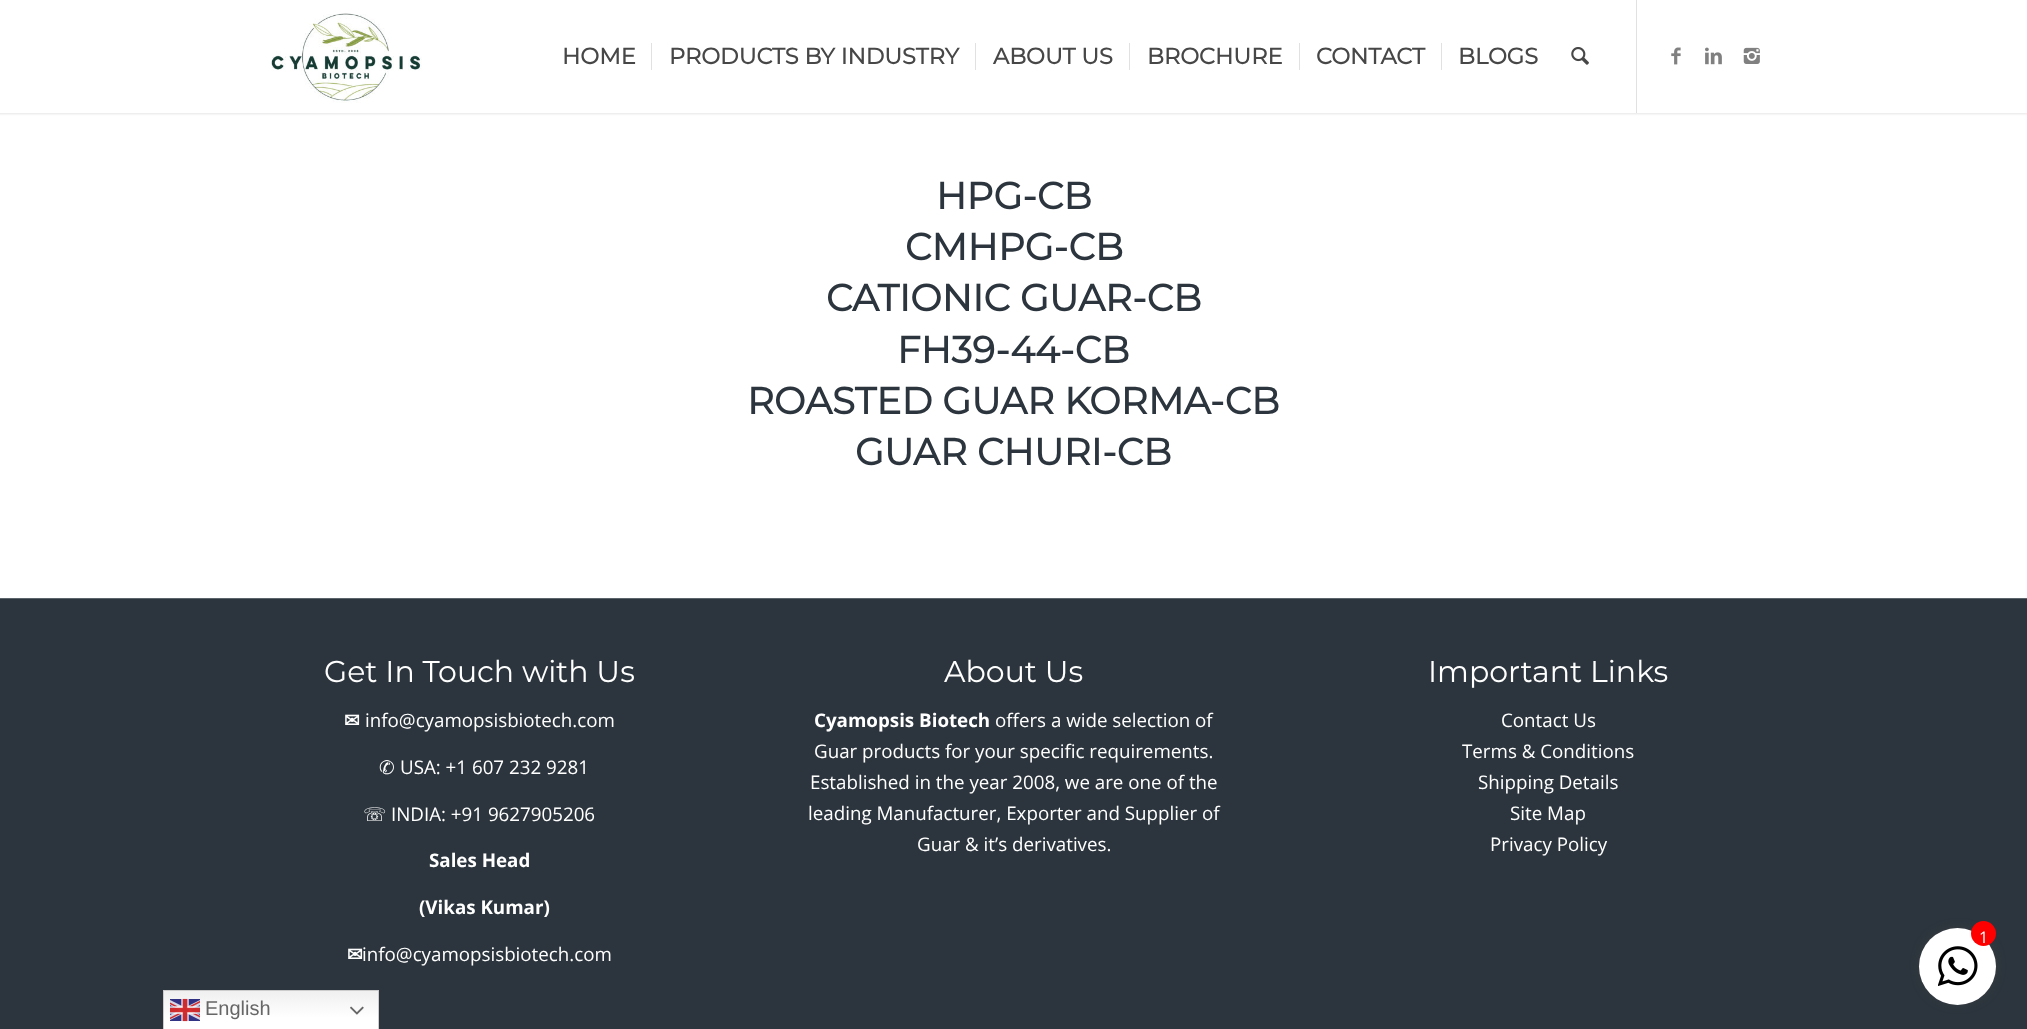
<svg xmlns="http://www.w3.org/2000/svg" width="2027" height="1029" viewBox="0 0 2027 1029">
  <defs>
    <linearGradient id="g1" gradientUnits="userSpaceOnUse" x1="271" y1="990" x2="271" y2="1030"><stop offset="0" stop-color="rgb(239,239,239)"/><stop offset="0.7" stop-color="rgb(255,255,255)"/></linearGradient>
  </defs>
  <rect width="100%" height="100%" fill="rgb(255,255,255)"/>
  <rect x="-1" y="-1" width="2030" height="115" fill="rgba(0,0,0,0.1)" filter="blur(1px)"/>
  <rect x="0" y="0" width="2027" height="113" fill="rgb(255,255,255)"/>
  <image x="271" y="13" width="151" height="90" href="pic1.png"/>
  <rect x="1636" y="0" width="1" height="113" fill="rgb(225,225,225)"/>
  <g font-family="Montserrat" font-size="22.5" font-weight="bold" fill="rgb(71,71,71)">
    <text x="562" y="64">HOME</text>
    <text x="669" y="64">PRODUCTS BY INDUSTRY</text>
  </g>
  <rect x="651" y="43" width="1" height="27" fill="rgb(225,225,225)"/>
  <text x="993" y="64" font-family="Montserrat" font-size="22.5" font-weight="bold" fill="rgb(71,71,71)">ABOUT US</text>
  <rect x="975" y="43" width="1" height="27" fill="rgb(225,225,225)"/>
  <text x="1147" y="64" font-family="Montserrat" font-size="22.5" font-weight="bold" fill="rgb(71,71,71)">BROCHURE</text>
  <rect x="1129" y="43" width="1" height="27" fill="rgb(225,225,225)"/>
  <text x="1316" y="64" font-family="Montserrat" font-size="22.5" font-weight="bold" fill="rgb(71,71,71)">CONTACT</text>
  <rect x="1299" y="43" width="1" height="27" fill="rgb(225,225,225)"/>
  <text x="1458" y="64" font-family="Montserrat" font-size="22.5" font-weight="bold" fill="rgb(71,71,71)">BLOGS</text>
  <rect x="1441" y="43" width="1" height="27" fill="rgb(225,225,225)"/>
  <image x="1571" y="47" width="18" height="18" href="pic2.png"/>
  <image x="1671" y="47" width="10" height="18" href="pic3.png"/>
  <image x="1705" y="47" width="17" height="18" href="pic4.png"/>
  <image x="1743" y="47" width="17" height="17" href="pic5.png"/>
  <g font-family="Montserrat" font-size="37.5" font-weight="bold" fill="rgb(44,53,61)">
    <text x="936" y="209">HPG-CB</text>
    <text x="905" y="260">CMHPG-CB</text>
    <text x="826" y="311">CATIONIC GUAR-CB</text>
    <text x="897" y="363">FH39-44-CB</text>
    <text x="747" y="414">ROASTED GUAR KORMA-CB</text>
    <text x="855" y="465">GUAR CHURI-CB</text>
  </g>
  <rect x="0" y="599" width="2027" height="430" fill="rgb(44,53,61)"/>
  <rect x="0" y="598" width="2027" height="1" fill="rgb(91,100,107)"/>
  <text x="324" y="682" font-family="Montserrat" font-size="30" font-weight="100" fill="rgb(255,255,255)">Get In Touch with Us</text>
  <text x="344" y="727" font-family="DejaVu Sans" font-size="18.75" font-weight="bold" fill="rgb(255,255,255)">✉</text>
  <text x="365" y="727" font-family="Open Sans" font-size="18.75" fill="rgb(255,255,255)">info@cyamopsisbiotech.com</text>
  <text x="379" y="774" font-family="DejaVu Sans" font-size="18.75" fill="rgb(255,255,255)">✆</text>
  <text x="400" y="774" font-family="Open Sans" font-size="18.75" fill="rgb(255,255,255)">USA: +1 607 232 9281</text>
  <text x="363" y="821" font-family="DejaVu Sans" font-size="18.75" fill="rgb(255,255,255)">☏</text>
  <text x="391" y="821" font-family="Open Sans" font-size="18.75" fill="rgb(255,255,255)">INDIA: +91 9627905206</text>
  <g font-family="Open Sans" font-size="18.75" font-weight="bold" fill="rgb(255,255,255)">
    <text x="429" y="867">Sales Head</text>
    <text x="419" y="914">(Vikas Kumar)</text>
  </g>
  <text x="347" y="961" font-family="DejaVu Sans" font-size="18.75" font-weight="bold" fill="rgb(255,255,255)">✉</text>
  <text x="362" y="961" font-family="Open Sans" font-size="18.75" fill="rgb(255,255,255)">info@cyamopsisbiotech.com</text>
  <text x="944" y="682" font-family="Montserrat" font-size="30" font-weight="100" fill="rgb(255,255,255)">About Us</text>
  <text x="814" y="727" font-family="Open Sans" font-size="18.75" font-weight="bold" fill="rgb(255,255,255)">Cyamopsis Biotech</text>
  <g font-family="Open Sans" font-size="18.75" fill="rgb(255,255,255)">
    <text x="995" y="727">offers a wide selection of</text>
    <text x="814" y="758">Guar products for your specific requirements.</text>
    <text x="810" y="789">Established in the year 2008, we are one of the</text>
    <text x="808" y="820">leading Manufacturer, Exporter and Supplier of</text>
    <text x="917" y="851">Guar &amp; it’s derivatives.</text>
  </g>
  <text x="1428" y="682" font-family="Montserrat" font-size="30" font-weight="100" fill="rgb(255,255,255)">Important Links</text>
  <g font-family="Open Sans" font-size="18.75" fill="rgb(255,255,255)">
    <text x="1501" y="727">Contact Us</text>
    <text x="1462" y="758">Terms &amp; Conditions</text>
    <text x="1478" y="789">Shipping Details</text>
    <text x="1510" y="820">Site Map</text>
    <text x="1490" y="851">Privacy Policy</text>
  </g>
  <rect x="1923" y="931" width="70" height="70" rx="35" fill="rgb(68,68,68)" filter="blur(6px)"/>
  <circle cx="1957.5" cy="966.5" r="38.5" fill="rgb(255,255,255)"/>
  <circle cx="1983.5" cy="933.5" r="12.5" fill="rgb(255,0,0)"/>
  <text x="1979" y="943" font-family="Open Sans" font-size="16" fill="rgb(255,255,255)">1</text>
  <image x="1938" y="946" width="40" height="40" href="pic6.png"/>
  <rect x="164" y="991" width="214" height="38" fill="url(#g1)"/>
  <rect x="163.5" y="990.5" width="215" height="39" fill="none" stroke="rgb(204,204,204)"/>
  <image x="170" y="998" width="30" height="24" href="pic7.png"/>
  <text x="205" y="1015" font-family="Liberation Sans" font-size="20" fill="rgb(102,102,102)">English</text>
  <image x="350" y="1006" width="14" height="9" href="pic8.png"/>
</svg>
